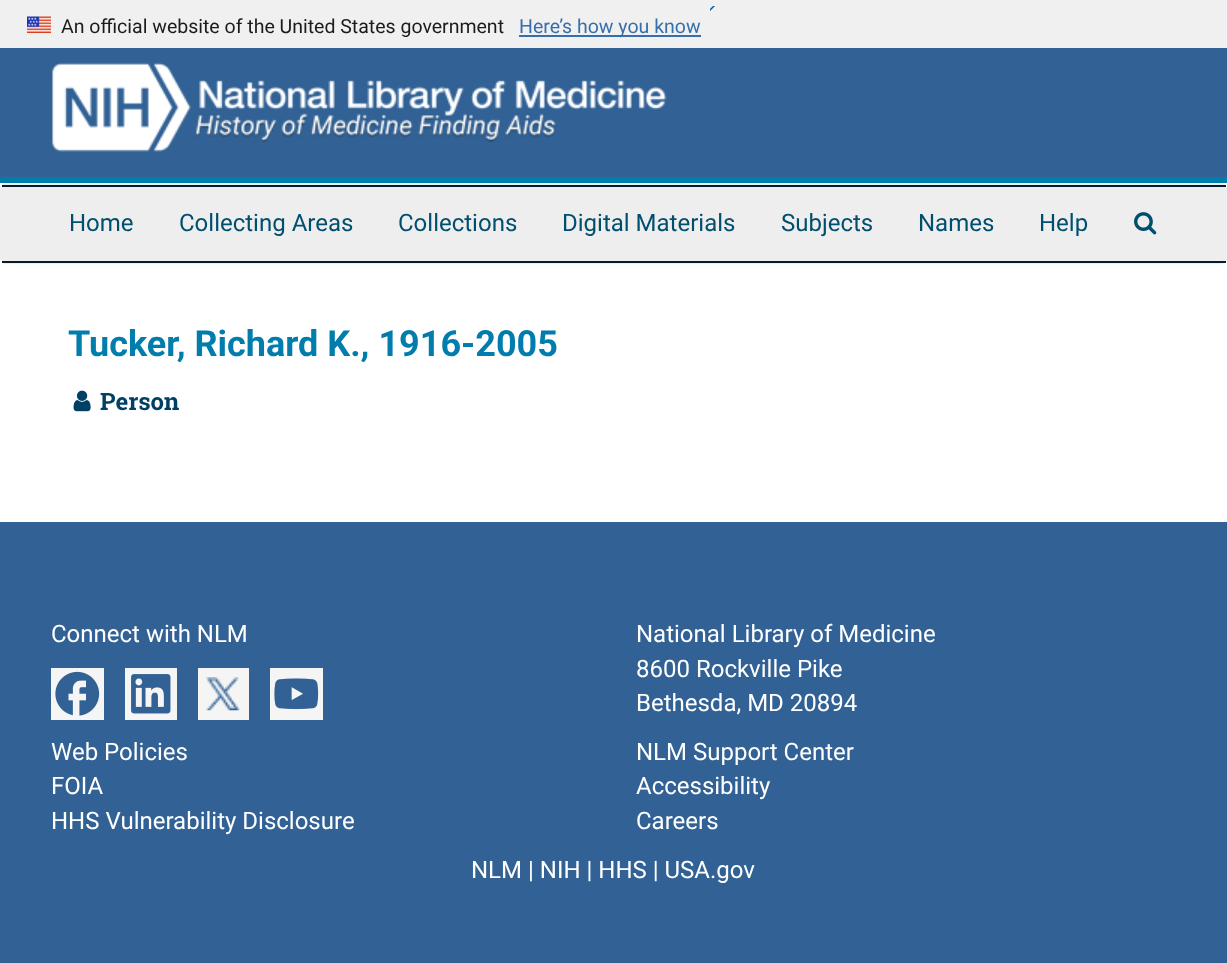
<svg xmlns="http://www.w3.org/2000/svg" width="1227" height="963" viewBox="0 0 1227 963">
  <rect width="100%" height="100%" fill="rgb(255,255,255)"/>
  <rect x="0" y="0" width="1227" height="48" fill="rgb(240,240,240)"/>
  <image x="710" y="6" width="5" height="5" href="pic1.png"/>
  <image x="27" y="16" width="24" height="17" href="pic2.png"/>
  <text x="61" y="33" font-family="Roboto" font-size="19.5" fill="rgb(27,27,27)">An official website of the United States government</text>
  <rect x="519" y="35" width="182" height="2" fill="rgb(55,111,170)"/>
  <text x="519" y="33" font-family="Roboto" font-size="19.5" fill="rgb(55,111,170)">Here’s how you know</text>
  <rect x="0" y="48" width="1227" height="129" fill="rgb(50,98,149)"/>
  <rect x="0" y="177" width="1227" height="6" fill="rgb(0,124,173)"/>
  <image x="52" y="62" width="615" height="90" href="pic3.png"/>
  <rect x="1" y="184" width="1225" height="79" rx="5" fill="none" stroke="rgb(238,238,238)" stroke-width="2"/>
  <rect x="2" y="187" width="1223" height="74" fill="rgb(238,238,238)"/>
  <rect x="2" y="185" width="1224" height="2" fill="rgb(4,28,47)"/>
  <rect x="2" y="261" width="1224" height="2" fill="rgb(4,28,47)"/>
  <g font-family="Roboto" font-size="24" fill="rgb(0,79,111)">
    <text x="69" y="231">Home</text>
    <text x="179" y="231">Collecting Areas</text>
    <text x="398" y="231">Collections</text>
    <text x="562" y="231">Digital Materials</text>
    <text x="781" y="231">Subjects</text>
    <text x="918" y="231">Names</text>
    <text x="1039" y="231">Help</text>
  </g>
  <image x="1134" y="212" width="23" height="23" href="pic4.png"/>
  <text x="68" y="356" font-family="Roboto" font-size="36" font-weight="bold" fill="rgb(0,124,173)">Tucker, Richard K., 1916-2005</text>
  <image x="73" y="390" width="18" height="22" href="pic5.png"/>
  <text x="100" y="410" font-family="Roboto Slab" font-size="24" font-weight="bold" fill="rgb(0,64,101)">Person</text>
  <rect x="0" y="522" width="1227" height="441" fill="rgb(50,98,149)"/>
  <text x="51" y="642" font-family="Roboto" font-size="24" fill="rgb(255,255,255)">Connect with NLM</text>
  <rect x="51" y="668" width="53" height="52" fill="rgb(245,245,245)"/>
  <image x="55" y="671" width="45" height="45" href="pic6.png"/>
  <rect x="125" y="668" width="52" height="52" fill="rgb(245,245,245)"/>
  <image x="131" y="674" width="40" height="40" href="pic7.png"/>
  <rect x="198" y="668" width="51" height="52" fill="rgb(245,245,245)"/>
  <image x="205" y="677" width="35" height="34" href="pic8.png"/>
  <rect x="270" y="668" width="53" height="52" fill="rgb(245,245,245)"/>
  <image x="274" y="678" width="45" height="32" href="pic9.png"/>
  <g font-family="Roboto" font-size="24" fill="rgb(255,255,255)">
    <text>
      <tspan x="636" y="642">National Library of Medicine</tspan>
      <tspan x="636" y="677">8600 Rockville Pike</tspan>
      <tspan x="636" y="711">Bethesda, MD 20894</tspan>
    </text>
    <text>
      <tspan x="51" y="760">Web Policies</tspan>
      <tspan x="51" y="794">FOIA</tspan>
      <tspan x="51" y="829">HHS Vulnerability Disclosure</tspan>
    </text>
    <text>
      <tspan x="636" y="760">NLM Support Center</tspan>
      <tspan x="636" y="794">Accessibility</tspan>
      <tspan x="636" y="829">Careers</tspan>
    </text>
    <text x="471" y="878">NLM | NIH | HHS | USA.gov</text>
  </g>
</svg>
